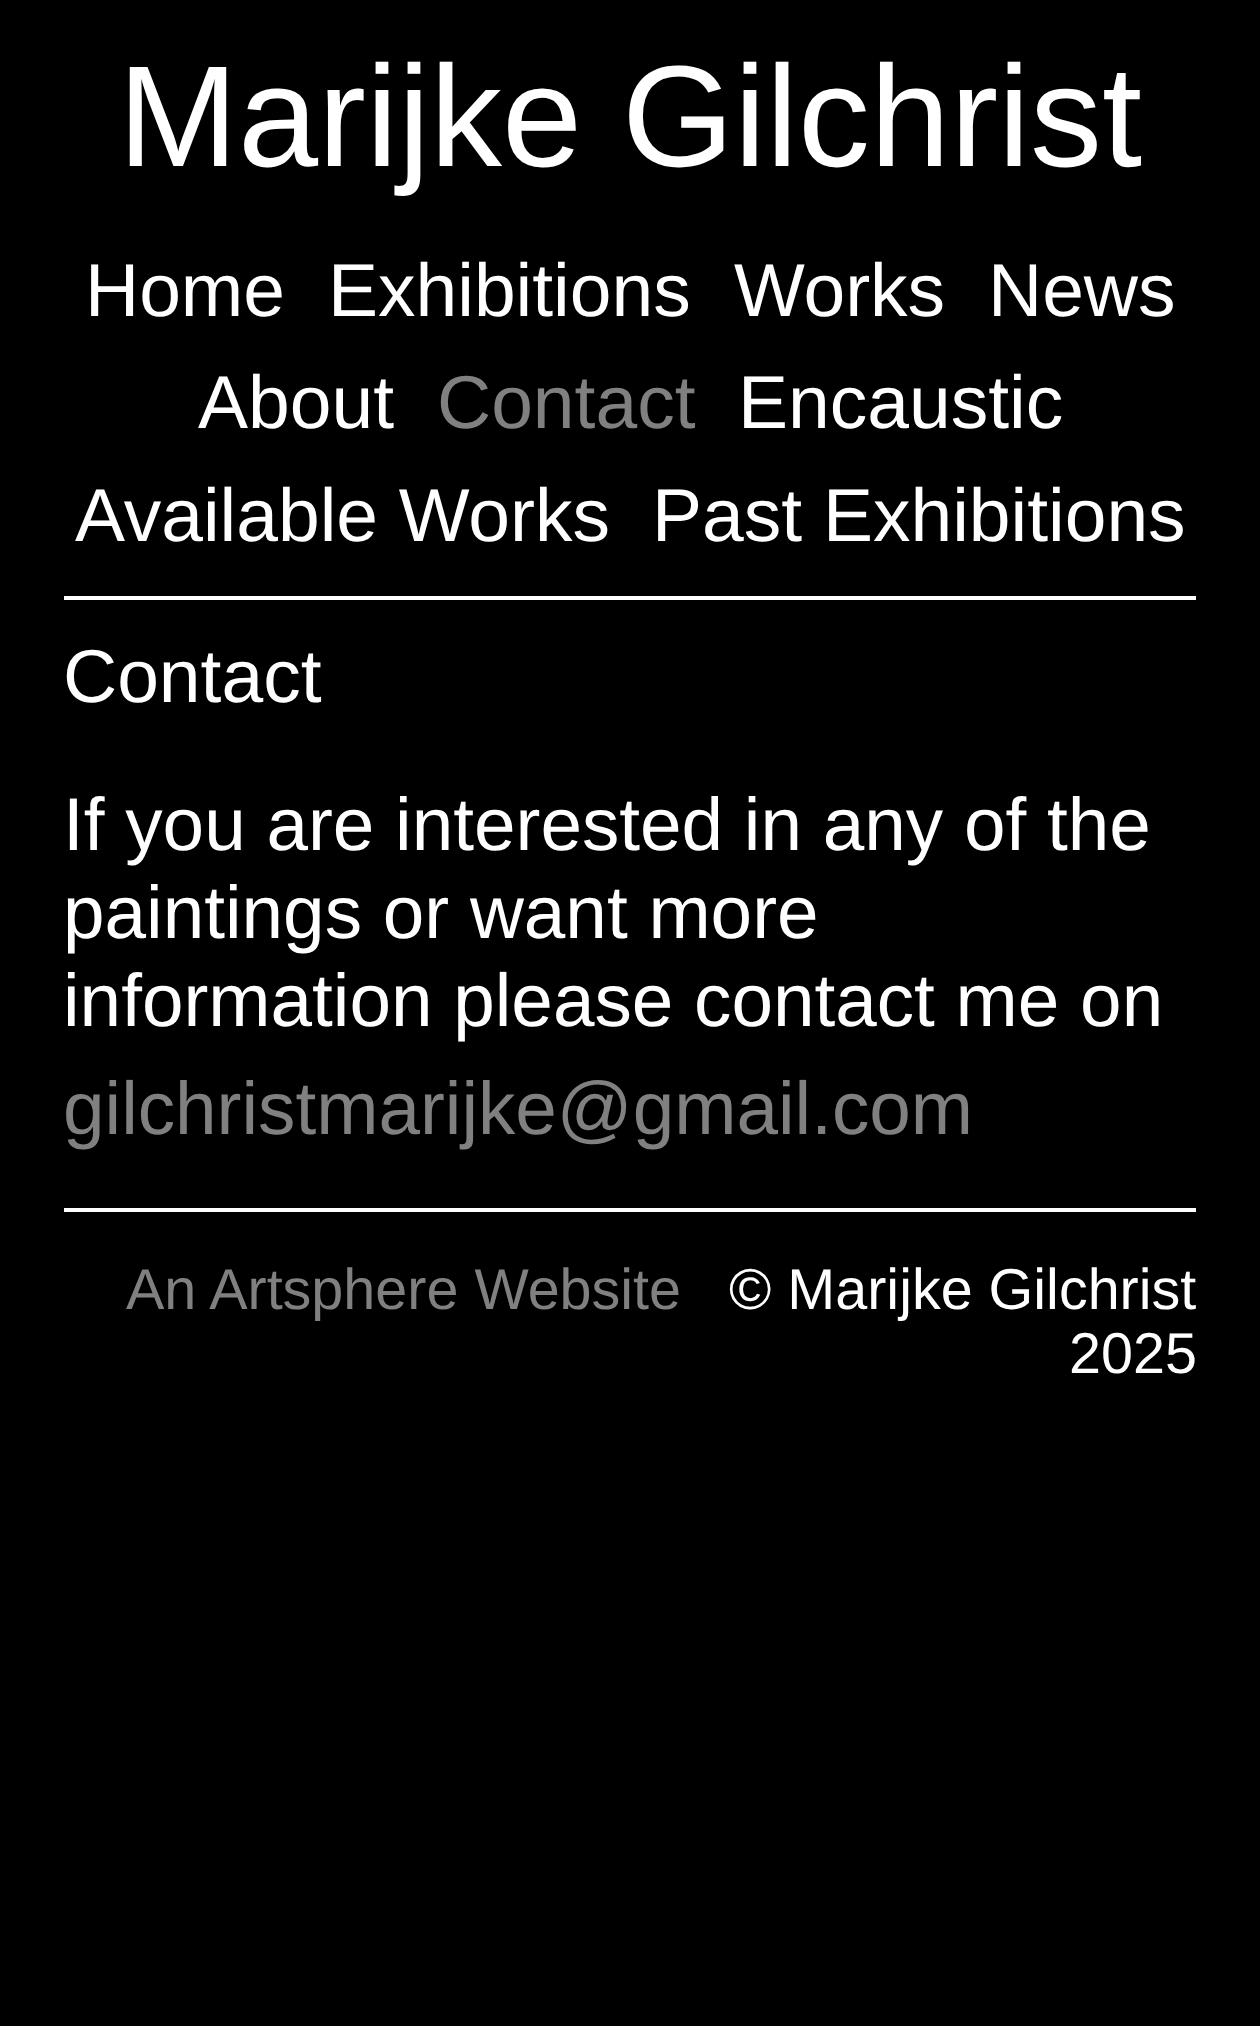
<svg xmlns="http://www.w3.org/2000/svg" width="1260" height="2026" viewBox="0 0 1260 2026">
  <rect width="100%" height="100%" fill="rgb(0,0,0)"/>
  <text x="118" y="166" font-family="Liberation Sans" font-size="144" fill="rgb(255,255,255)">Marijke Gilchrist</text>
  <rect x="64" y="596" width="1132" height="4" fill="rgb(255,255,255)"/>
  <g font-family="Liberation Sans" font-size="75" fill="rgb(255,255,255)">
    <text x="85" y="316">Home</text>
    <text x="328" y="316">Exhibitions</text>
    <text x="734" y="316">Works</text>
    <text x="988" y="316">News</text>
    <text x="198" y="428">About</text>
  </g>
  <text x="437" y="428" font-family="Liberation Sans" font-size="75" fill="rgb(128,128,128)">Contact</text>
  <g font-family="Liberation Sans" font-size="75" fill="rgb(255,255,255)">
    <text x="738" y="428">Encaustic</text>
    <text x="75" y="541">Available Works</text>
    <text x="652" y="541">Past Exhibitions</text>
    <text x="63" y="702">Contact</text>
  </g>
  <g font-family="Liberation Sans" font-size="74.7" fill="rgb(255,255,255)">
    <text>
      <tspan x="63" y="850">If you are interested in any of the</tspan>
      <tspan x="63" y="938">paintings or want more</tspan>
      <tspan x="63" y="1026">information please contact me on</tspan>
    </text>
  </g>
  <text x="63" y="1134" font-family="Liberation Sans" font-size="74.7" fill="rgb(128,128,128)">gilchristmarijke@gmail.com</text>
  <rect x="64" y="1208" width="1132" height="4" fill="rgb(255,255,255)"/>
  <text x="126" y="1309" font-family="Liberation Sans" font-size="57.5" fill="rgb(128,128,128)">An Artsphere Website</text>
  <g font-family="Liberation Sans" font-size="57.5" fill="rgb(255,255,255)">
    <text x="729" y="1309">© Marijke Gilchrist</text>
    <text x="1069" y="1373">2025</text>
  </g>
</svg>
